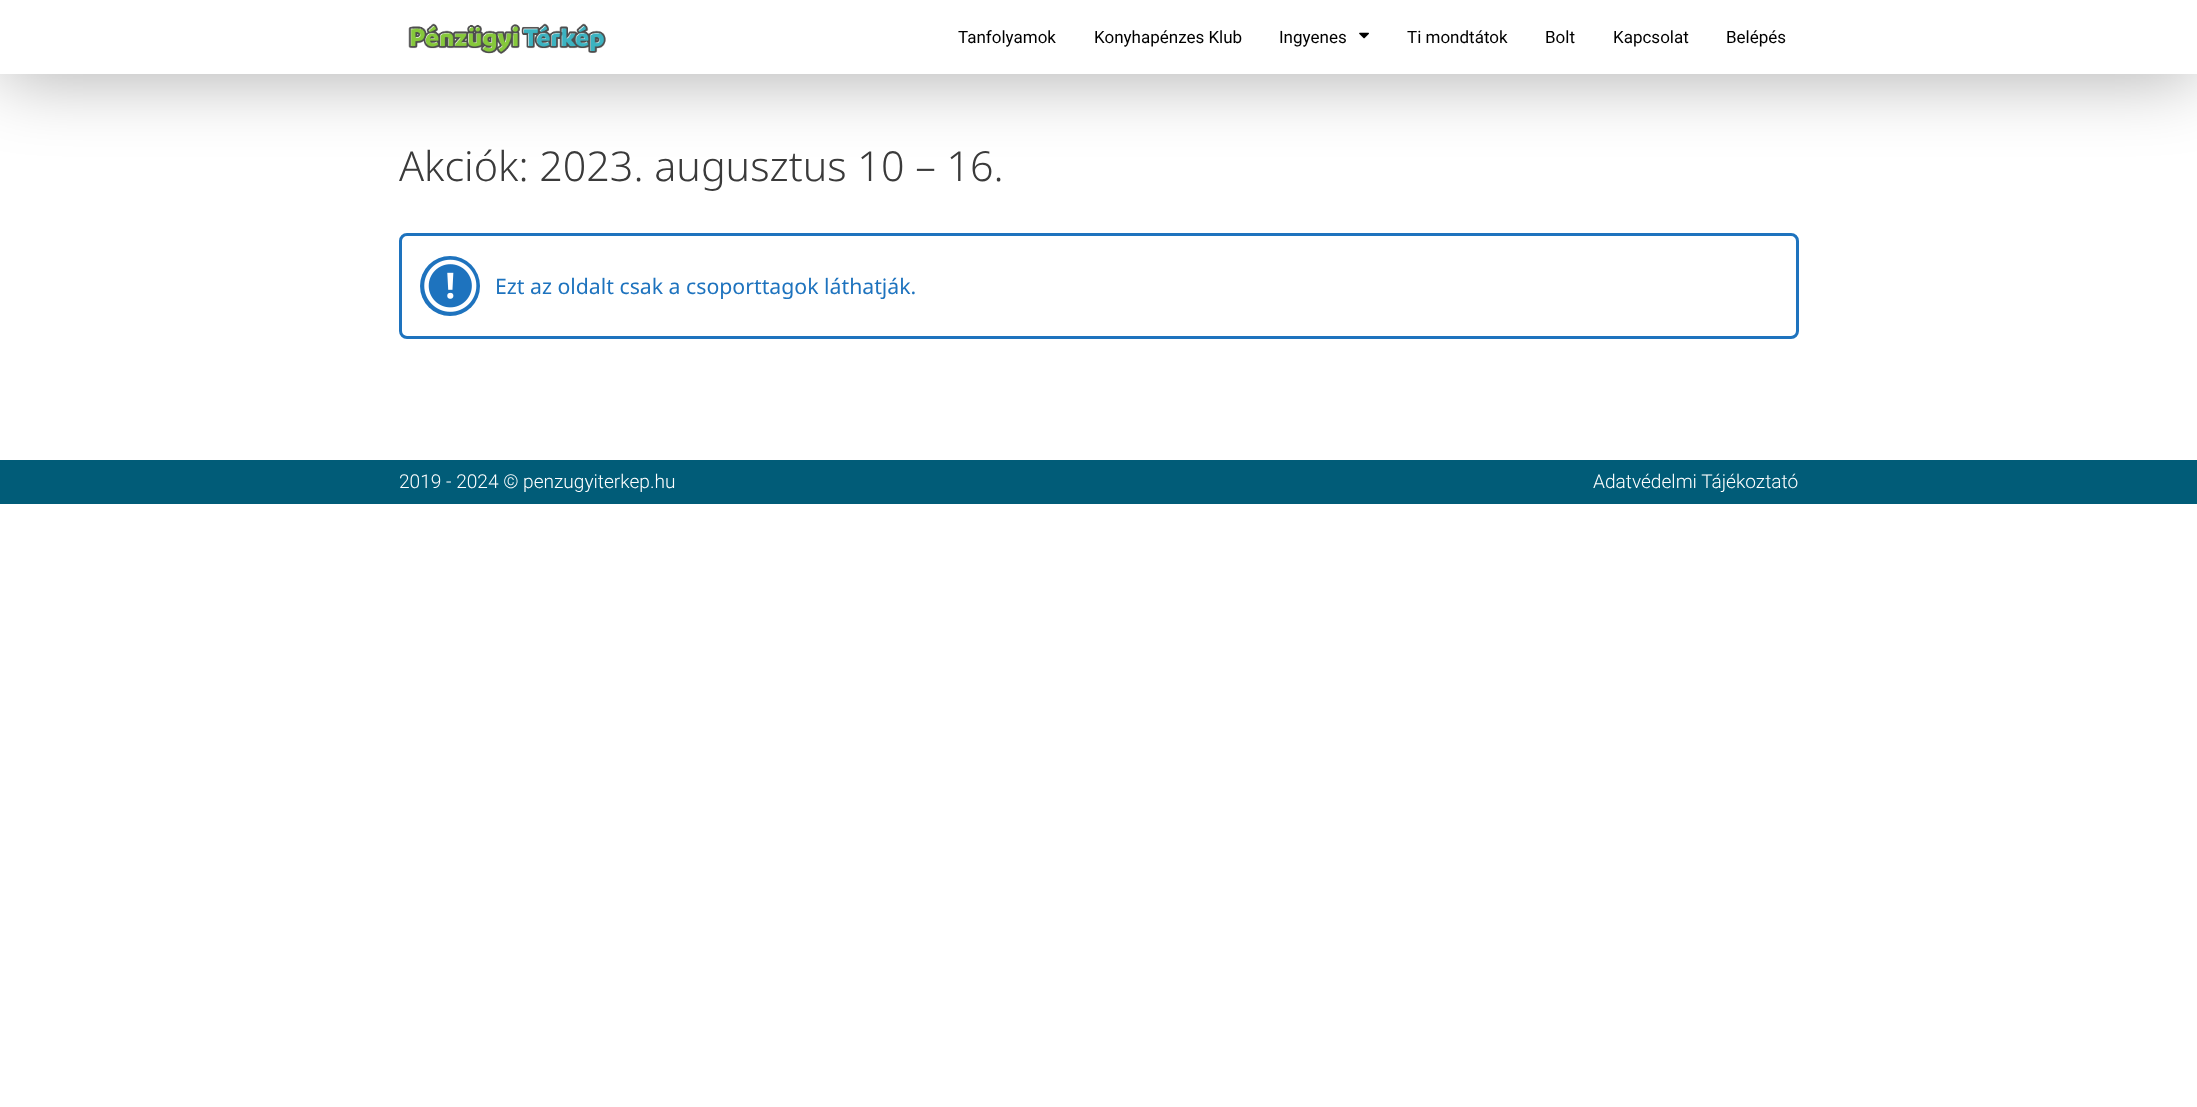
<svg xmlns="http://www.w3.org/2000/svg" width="2197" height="1107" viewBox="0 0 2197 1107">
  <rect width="100%" height="100%" fill="rgb(255,255,255)"/>
  <rect x="0" y="0" width="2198" height="74" fill="rgba(0,0,0,0.35)" filter="blur(37.5px)"/>
  <rect x="0" y="0" width="2197" height="74" fill="rgb(255,255,255)"/>
  <image x="408" y="23" width="198" height="31" href="pic1.png"/>
  <g font-family="Roboto" font-size="17" fill="rgb(0,0,0)">
    <text x="958" y="43">Tanfolyamok</text>
    <text x="1094" y="43">Konyhapénzes Klub</text>
    <text x="1279" y="43">Ingyenes</text>
  </g>
  <image x="1359" y="32" width="10" height="7" href="pic2.png"/>
  <g font-family="Roboto" font-size="17" fill="rgb(0,0,0)">
    <text x="1407" y="43">Ti mondtátok</text>
    <text x="1545" y="43">Bolt</text>
    <text x="1613" y="43">Kapcsolat</text>
    <text x="1726" y="43">Belépés</text>
  </g>
  <text x="399" y="181" font-family="Noto Sans" font-size="41.25" font-weight="300" fill="rgb(58,58,58)">Akciók: 2023. augusztus 10 – 16.</text>
  <rect x="400.5" y="234.5" width="1397" height="103" rx="6.5" fill="none" stroke="rgb(30,115,190)" stroke-width="3"/>
  <circle cx="450" cy="286" r="30" fill="rgb(30,115,190)"/>
  <image x="424" y="259" width="53" height="53" href="pic3.png"/>
  <text x="495" y="294" font-family="Noto Sans" font-size="21.25" fill="rgb(30,115,190)">Ezt az oldalt csak a csoporttagok láthatják.</text>
  <rect x="0" y="460" width="2197" height="44" fill="rgb(1,92,120)"/>
  <g font-family="Roboto" font-size="19.1" font-weight="300" fill="rgb(255,255,255)">
    <text x="399" y="488">2019 - 2024 © penzugyiterkep.hu</text>
    <text x="1593" y="488">Adatvédelmi Tájékoztató</text>
  </g>
</svg>
